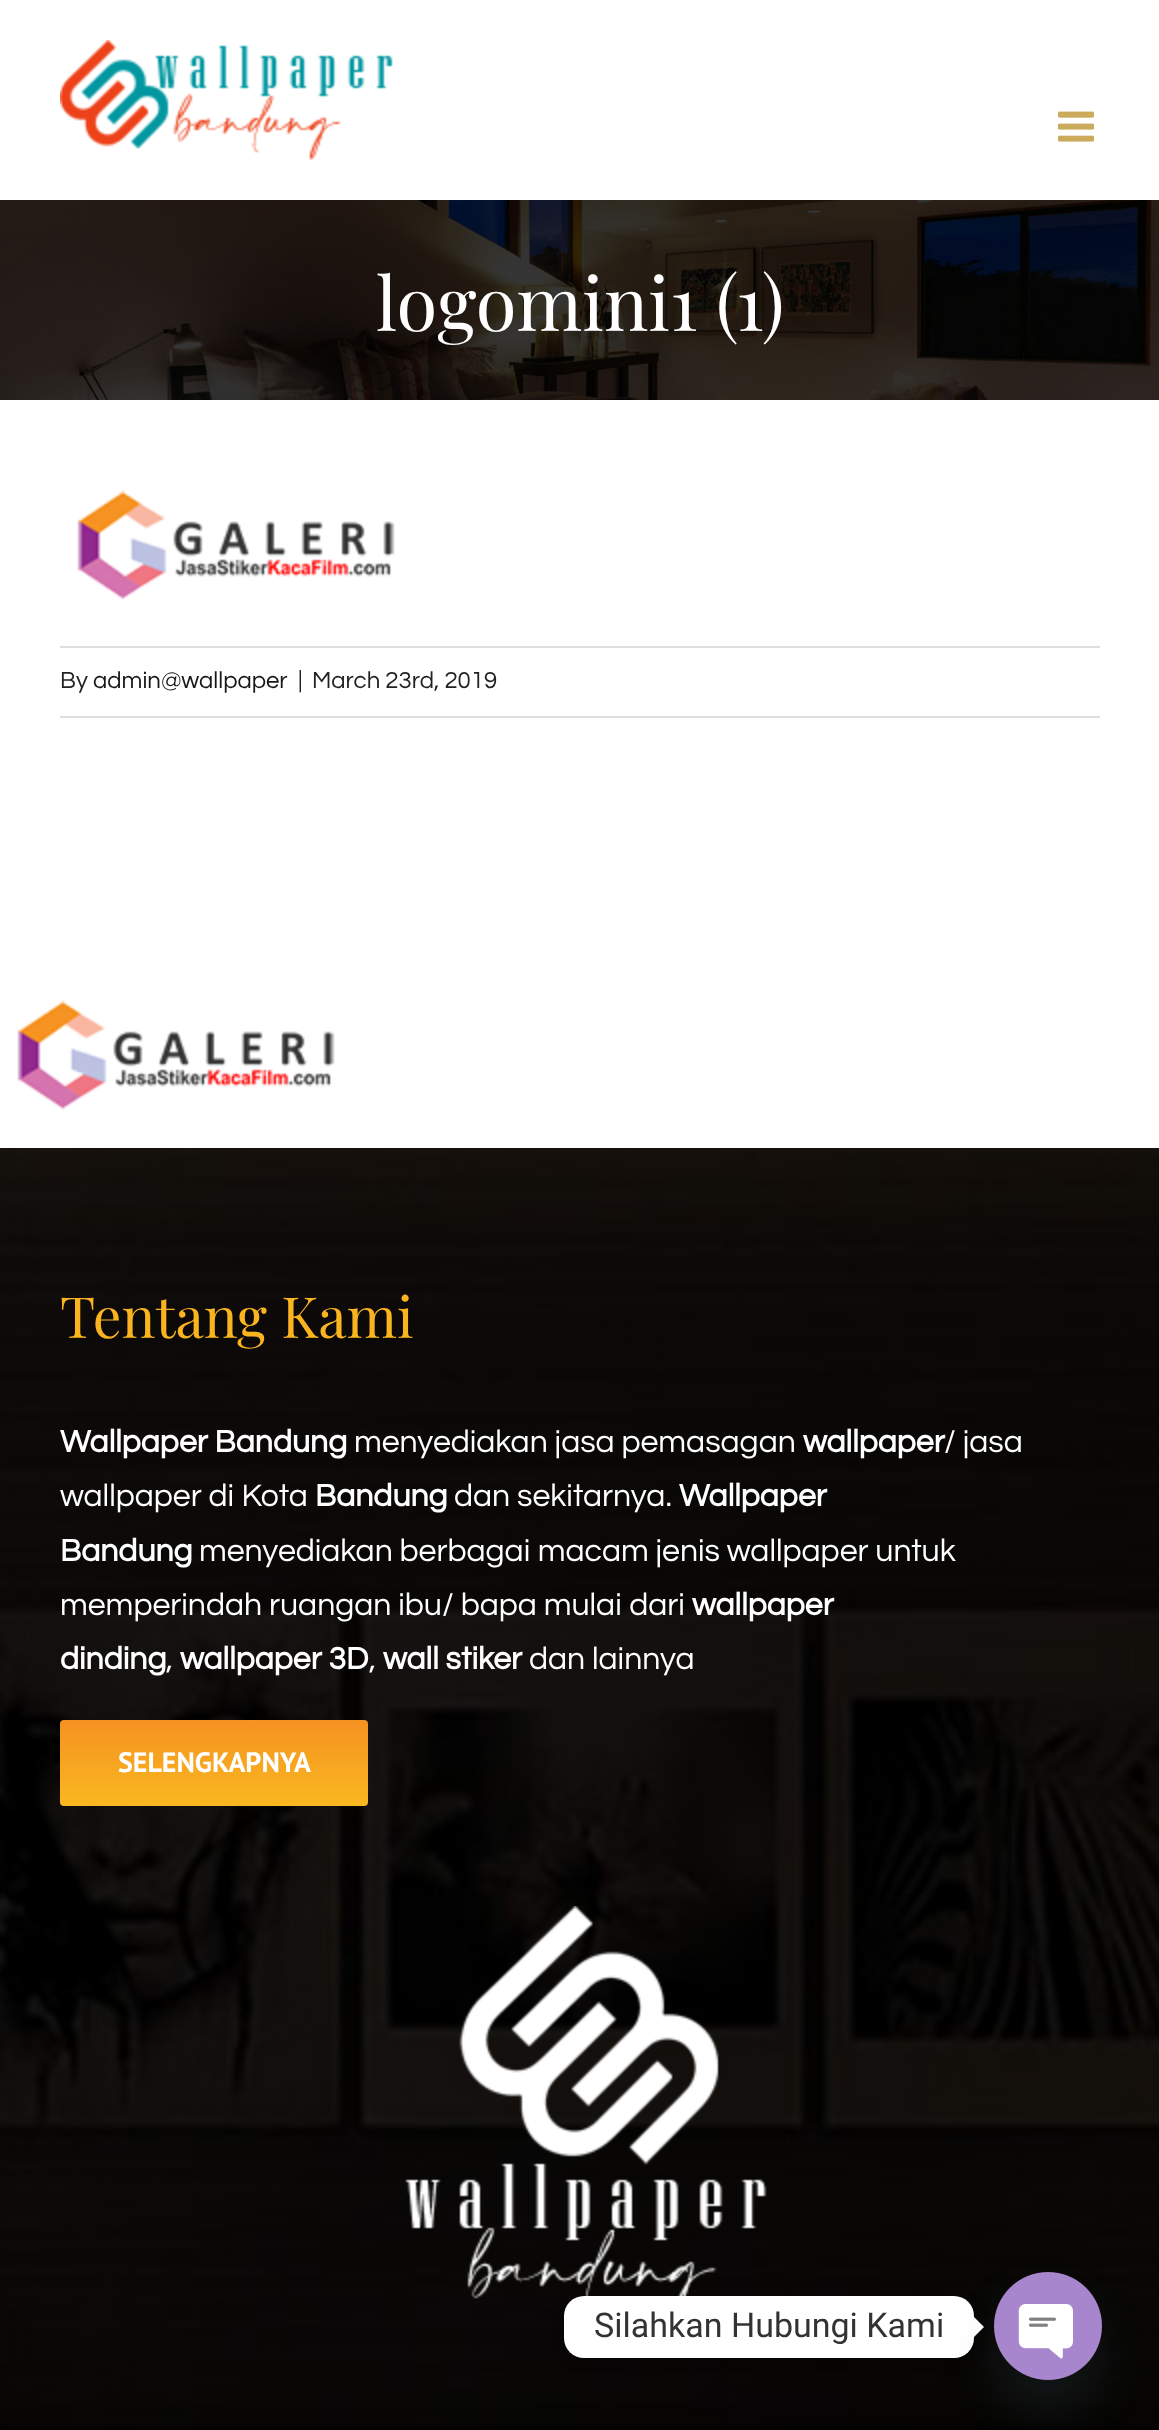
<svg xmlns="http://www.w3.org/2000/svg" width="1159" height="2430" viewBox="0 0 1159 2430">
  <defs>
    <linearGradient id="g1" gradientUnits="userSpaceOnUse" x1="214" y1="1720" x2="214" y2="1806"><stop offset="0" stop-color="rgb(245,146,33)"/><stop offset="1" stop-color="rgb(249,184,32)"/></linearGradient>
  </defs>
  <rect width="100%" height="100%" fill="rgb(255,255,255)"/>
  <image x="60" y="40" width="333" height="120" href="pic1.png"/>
  <image x="1058" y="111" width="36" height="31" href="pic2.png"/>
  <image x="0" y="200" width="1159" height="200" href="pic3.png"/>
  <text x="376" y="331" font-family="Playfair Display" font-size="74.25" fill="rgb(255,255,255)">logomini1 (1)</text>
  <image x="77" y="490" width="318" height="111" href="pic4.png"/>
  <rect x="60" y="646" width="1040" height="2" fill="rgb(224,222,222)"/>
  <rect x="60" y="716" width="1040" height="2" fill="rgb(224,222,222)"/>
  <text x="60" y="688" font-family="Questrial" font-size="24" fill="rgb(34,34,34)">By</text>
  <text x="93" y="688" font-family="Questrial" font-size="24" fill="rgb(23,23,23)">admin@wallpaper</text>
  <g font-family="Questrial" font-size="24" fill="rgb(34,34,34)">
    <text x="298" y="688">|</text>
    <text x="312" y="688">March 23rd, 2019</text>
  </g>
  <image x="17" y="1000" width="318" height="111" href="pic4.png"/>
  <image x="0" y="1148" width="1159" height="1282" href="pic5.png"/>
  <text x="60" y="1338" font-family="Playfair Display" font-size="56.75" fill="rgb(249,180,32)">Tentang Kami</text>
  <text x="60" y="1452" font-family="Questrial" font-size="32" font-weight="bold" fill="rgb(255,255,255)">Wallpaper Bandung</text>
  <text x="354" y="1452" font-family="Questrial" font-size="32" fill="rgb(255,255,255)">menyediakan jasa pemasagan</text>
  <text x="803" y="1452" font-family="Questrial" font-size="32" font-weight="bold" fill="rgb(255,255,255)">wallpaper</text>
  <g font-family="Questrial" font-size="32" fill="rgb(255,255,255)">
    <text x="944" y="1452">/ jasa</text>
    <text x="60" y="1506">wallpaper di Kota</text>
  </g>
  <text x="315" y="1506" font-family="Questrial" font-size="32" font-weight="bold" fill="rgb(255,255,255)">Bandung</text>
  <text x="454" y="1506" font-family="Questrial" font-size="32" fill="rgb(255,255,255)">dan sekitarnya.</text>
  <g font-family="Questrial" font-size="32" font-weight="bold" fill="rgb(255,255,255)">
    <text x="679" y="1506">Wallpaper</text>
    <text x="60" y="1561">Bandung</text>
  </g>
  <g font-family="Questrial" font-size="32" fill="rgb(255,255,255)">
    <text x="199" y="1561">menyediakan berbagai macam jenis wallpaper untuk</text>
    <text x="60" y="1615">memperindah ruangan ibu/ bapa mulai dari</text>
  </g>
  <g font-family="Questrial" font-size="32" font-weight="bold" fill="rgb(255,255,255)">
    <text x="692" y="1615">wallpaper</text>
    <text x="60" y="1669">dinding</text>
  </g>
  <text x="166" y="1669" font-family="Questrial" font-size="32" fill="rgb(255,255,255)">,</text>
  <text x="180" y="1669" font-family="Questrial" font-size="32" font-weight="bold" fill="rgb(255,255,255)">wallpaper 3D</text>
  <text x="369" y="1669" font-family="Questrial" font-size="32" fill="rgb(255,255,255)">,</text>
  <text x="383" y="1669" font-family="Questrial" font-size="32" font-weight="bold" fill="rgb(255,255,255)">wall stiker</text>
  <text x="529" y="1669" font-family="Questrial" font-size="32" fill="rgb(255,255,255)">dan lainnya</text>
  <rect x="60" y="1720" width="308" height="86" rx="4" fill="url(#g1)"/>
  <text x="118" y="1772" font-family="PT Sans" font-size="28" font-weight="bold" fill="rgb(255,255,255)">SELENGKAPNYA</text>
  <image x="405" y="1906" width="362" height="393" href="pic6.png"/>
  <rect x="564" y="2298" width="410" height="62" rx="20" fill="rgba(0,0,0,0.15)" filter="blur(7.5px)"/>
  <rect x="564" y="2296" width="410" height="62" rx="20" fill="rgb(255,255,255)"/>
  <text x="594" y="2337" font-family="Roboto" font-size="34" fill="rgb(51,51,51)">Silahkan Hubungi Kami</text>
  <path d="M974 2337V2317L984 2327Z" fill="rgb(255,255,255)"/>
  <rect x="994" y="2304" width="108" height="108" rx="54" fill="rgba(73,104,126,0.16)" filter="blur(24px)"/>
  <image x="994" y="2272" width="108" height="108" href="pic7.png"/>
</svg>
